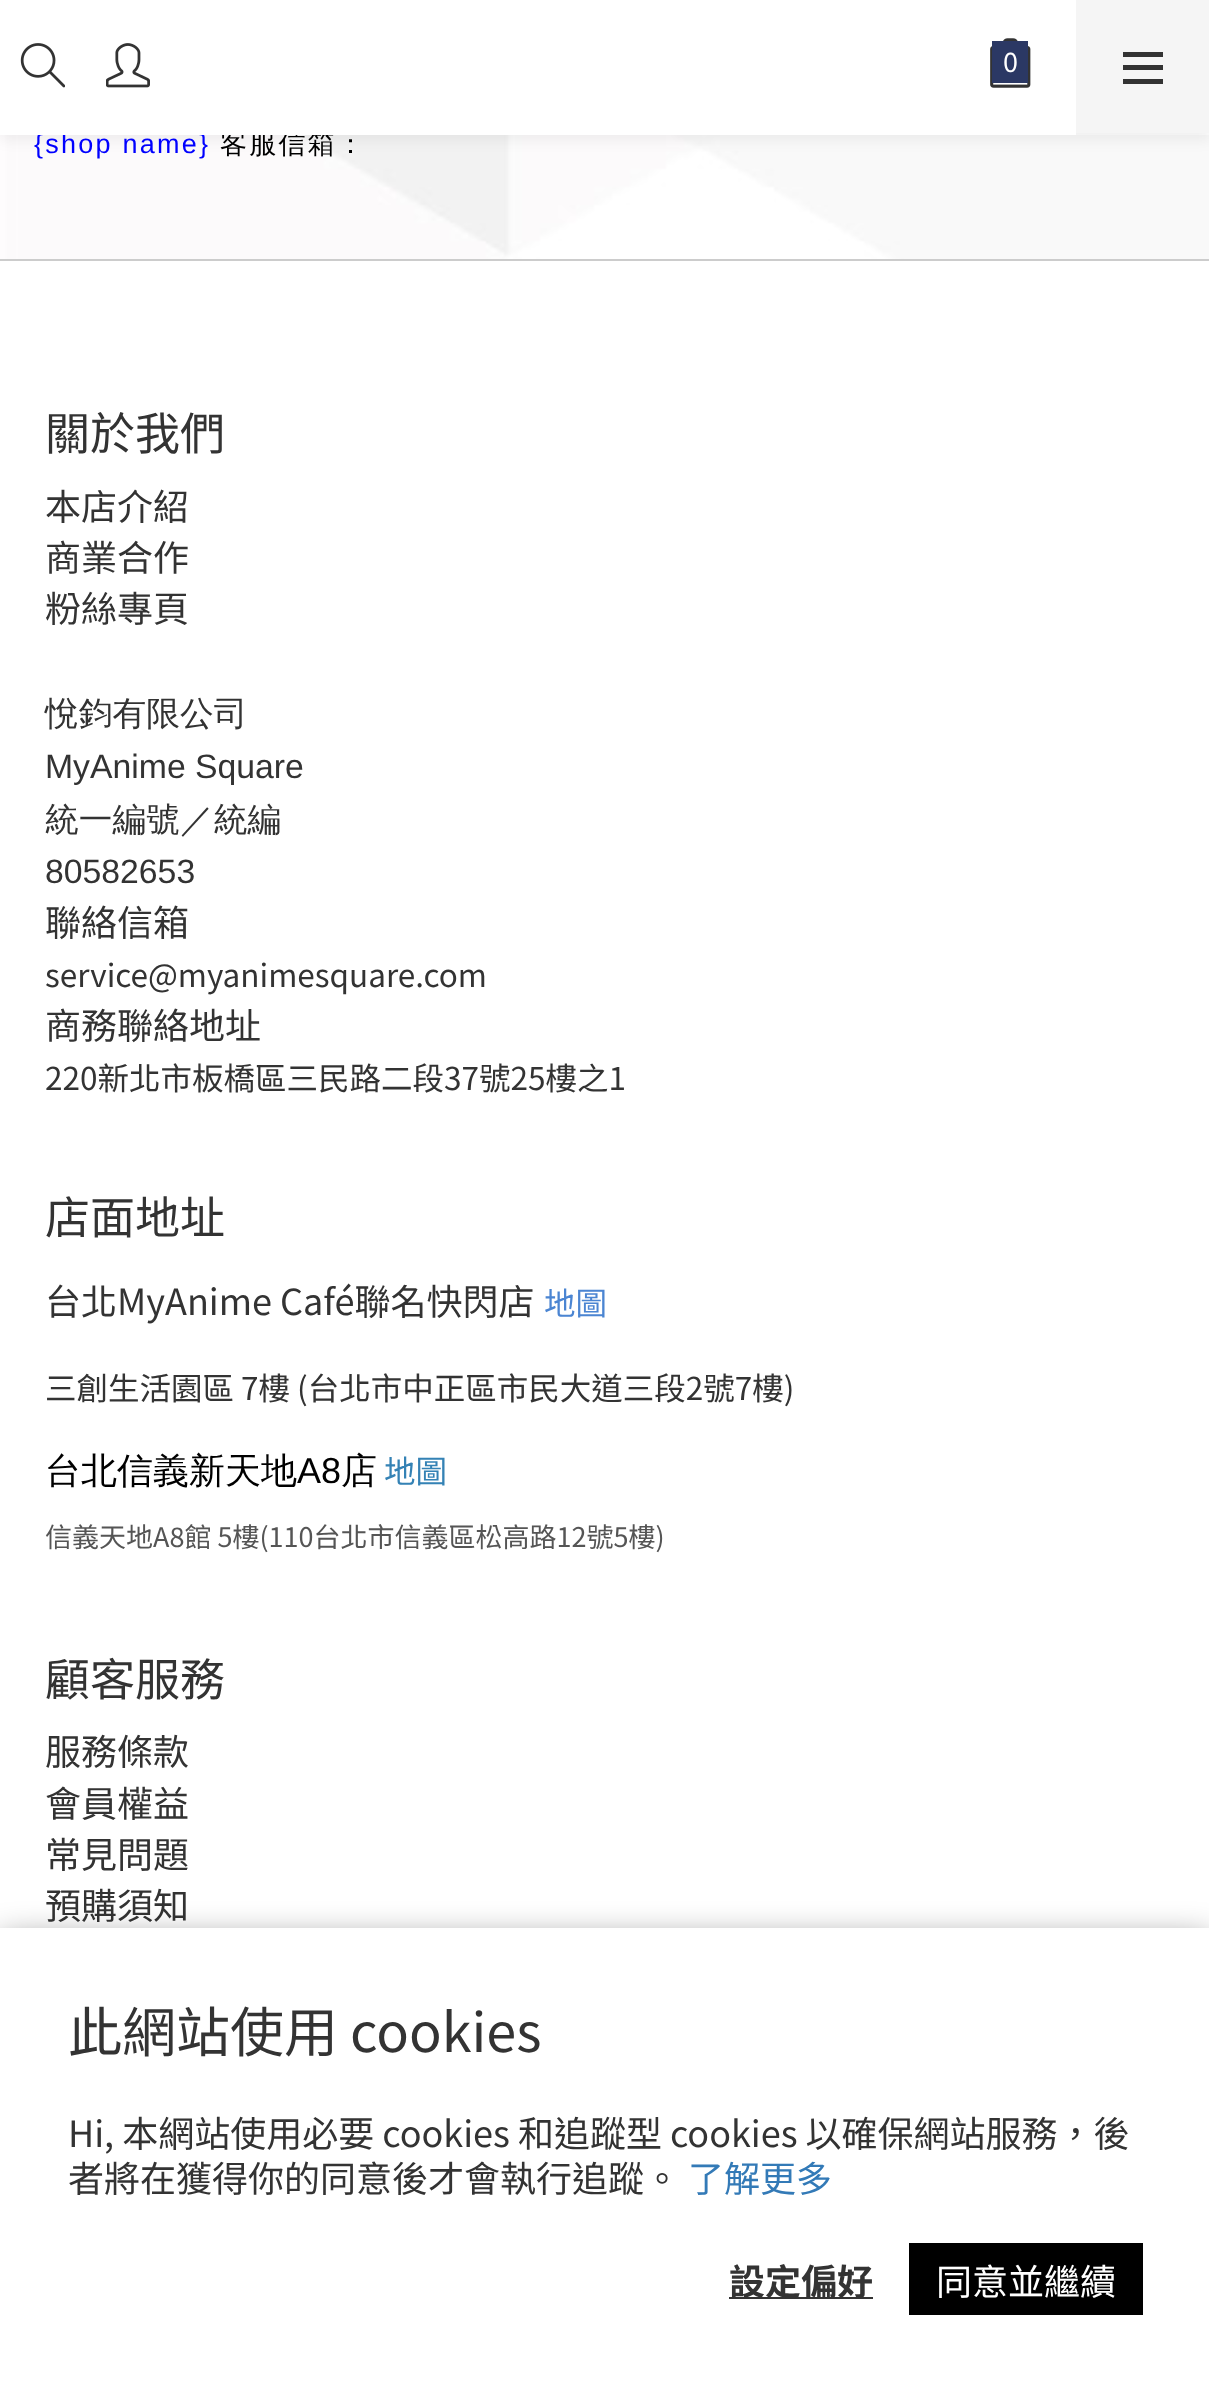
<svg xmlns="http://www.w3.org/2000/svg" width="1209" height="2381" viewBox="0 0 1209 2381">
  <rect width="100%" height="100%" fill="rgb(255,255,255)"/>
  <image x="0" y="135" width="1209" height="124" href="pic1.png"/>
  <rect x="0" y="5" width="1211" height="135" fill="rgba(0,0,0,0.06)" filter="blur(7px)"/>
  <text x="34" y="153" font-family="Liberation Sans" font-size="27" letter-spacing="2.25" fill="rgb(0,0,255)">{shop name}</text>
  <text x="220" y="153" font-family="WenQuanYi Zen Hei" font-size="27" font-weight="500" letter-spacing="2.25" fill="rgb(0,0,0)">客服信箱：</text>
  <rect x="0" y="0" width="1076" height="135" fill="rgb(255,255,255)"/>
  <image x="20" y="43" width="45" height="45" href="pic2.png"/>
  <image x="106" y="43" width="44" height="45" href="pic3.png"/>
  <image x="990" y="38" width="41" height="50" href="pic4.png"/>
  <rect x="992" y="41" width="36" height="42" fill="rgb(43,56,100)"/>
  <text x="1003" y="72" font-family="Noto Sans TC" font-size="27" fill="rgb(255,255,255)">0</text>
  <rect x="1076" y="0" width="133" height="133" fill="rgb(245,245,245)"/>
  <rect x="1123" y="65" width="40" height="5" fill="rgb(51,51,51)"/>
  <rect x="1123" y="52" width="40" height="5" fill="rgb(51,51,51)"/>
  <rect x="1123" y="79" width="40" height="5" fill="rgb(51,51,51)"/>
  <rect x="0" y="259" width="1209" height="2" fill="rgb(204,204,204)"/>
  <text x="45" y="450" font-family="Noto Sans TC" font-size="45" fill="rgb(51,51,51)">關於我們</text>
  <g font-family="Noto Sans TC" font-size="36" fill="rgb(51,51,51)">
    <text>
      <tspan x="45" y="520">本店介紹</tspan>
      <tspan x="45" y="571">商業合作</tspan>
      <tspan x="45" y="622">粉絲專頁</tspan>
    </text>
  </g>
  <text x="45" y="725" font-family="WenQuanYi Zen Hei" font-size="33.75" font-weight="500" fill="rgb(51,51,51)">悅鈞有限公司</text>
  <text x="45" y="778" font-family="Liberation Sans" font-size="33.75" fill="rgb(51,51,51)">MyAnime Square</text>
  <text x="45" y="831" font-family="WenQuanYi Zen Hei" font-size="33.75" font-weight="500" fill="rgb(51,51,51)">統一編號／統編</text>
  <text x="45" y="883" font-family="Liberation Sans" font-size="33.75" fill="rgb(51,51,51)">80582653</text>
  <text x="45" y="936" font-family="Noto Sans TC" font-size="36" fill="rgb(51,51,51)">聯絡信箱</text>
  <text x="45" y="987" font-family="Noto Sans TC" font-size="31.5" fill="rgb(51,51,51)">service@myanimesquare.com</text>
  <text x="45" y="1039" font-family="Noto Sans TC" font-size="36" fill="rgb(51,51,51)">商務聯絡地址</text>
  <text x="45" y="1090" font-family="Noto Sans TC" font-size="31.5" fill="rgb(51,51,51)">220新北市板橋區三民路二段37號25樓之1</text>
  <text x="45" y="1234" font-family="Noto Sans TC" font-size="45" fill="rgb(51,51,51)">店面地址</text>
  <text x="45" y="1315" font-family="Noto Sans TC" font-size="36" fill="rgb(51,51,51)">台北MyAnime Café聯名快閃店</text>
  <text x="544" y="1315" font-family="Noto Sans TC" font-size="31.5" fill="rgb(75,133,210)">地圖</text>
  <text x="45" y="1400" font-family="Noto Sans TC" font-size="31.5" fill="rgb(51,51,51)">三創生活園區 7樓 (台北市中正區市民大道三段2號7樓)</text>
  <text x="45" y="1483" font-family="WenQuanYi Zen Hei" font-size="36" font-weight="500" fill="rgb(0,0,0)">台北信義新天地</text>
  <text x="297" y="1483" font-family="Liberation Sans" font-size="36" fill="rgb(0,0,0)">A8</text>
  <text x="341" y="1483" font-family="WenQuanYi Zen Hei" font-size="36" font-weight="500" fill="rgb(0,0,0)">店</text>
  <text x="384" y="1483" font-family="Noto Sans TC" font-size="31.5" fill="rgb(52,130,181)">地圖</text>
  <text x="45" y="1547" font-family="Noto Sans TC" font-size="27" fill="rgb(85,85,85)">信義天地A8館 5樓(110台北市信義區松高路12號5樓)</text>
  <text x="45" y="1696" font-family="Noto Sans TC" font-size="45" fill="rgb(51,51,51)">顧客服務</text>
  <g font-family="Noto Sans TC" font-size="36" fill="rgb(51,51,51)">
    <text>
      <tspan x="45" y="1765">服務條款</tspan>
      <tspan x="45" y="1817">會員權益</tspan>
      <tspan x="45" y="1868">常見問題</tspan>
      <tspan x="45" y="1919">預購須知</tspan>
    </text>
  </g>
  <rect x="0" y="1940" width="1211" height="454" fill="rgba(0,0,0,0.5)" filter="blur(17px)"/>
  <rect x="0" y="1928" width="1209" height="453" fill="rgb(255,255,255)"/>
  <text x="68" y="2052" font-family="Noto Sans TC" font-size="54" fill="rgb(51,51,51)">此網站使用 cookies</text>
  <g font-family="Noto Sans TC" font-size="36" fill="rgb(51,51,51)">
    <text>
      <tspan x="68" y="2147">Hi, 本網站使用必要 cookies 和追蹤型 cookies 以確保網站服務，後</tspan>
      <tspan x="68" y="2192">者將在獲得你的同意後才會執行追蹤。</tspan>
    </text>
  </g>
  <text x="688" y="2192" font-family="Noto Sans TC" font-size="36" fill="rgb(51,122,183)">了解更多</text>
  <rect x="729" y="2297" width="144" height="2" fill="rgb(51,51,51)"/>
  <text x="729" y="2295" font-family="Noto Sans TC" font-size="36" font-weight="bold" fill="rgb(51,51,51)">設定偏好</text>
  <rect x="909" y="2243" width="234" height="72" fill="rgb(0,0,0)"/>
  <text x="936" y="2295" font-family="Noto Sans TC" font-size="36" fill="rgb(255,255,255)">同意並繼續</text>
</svg>
